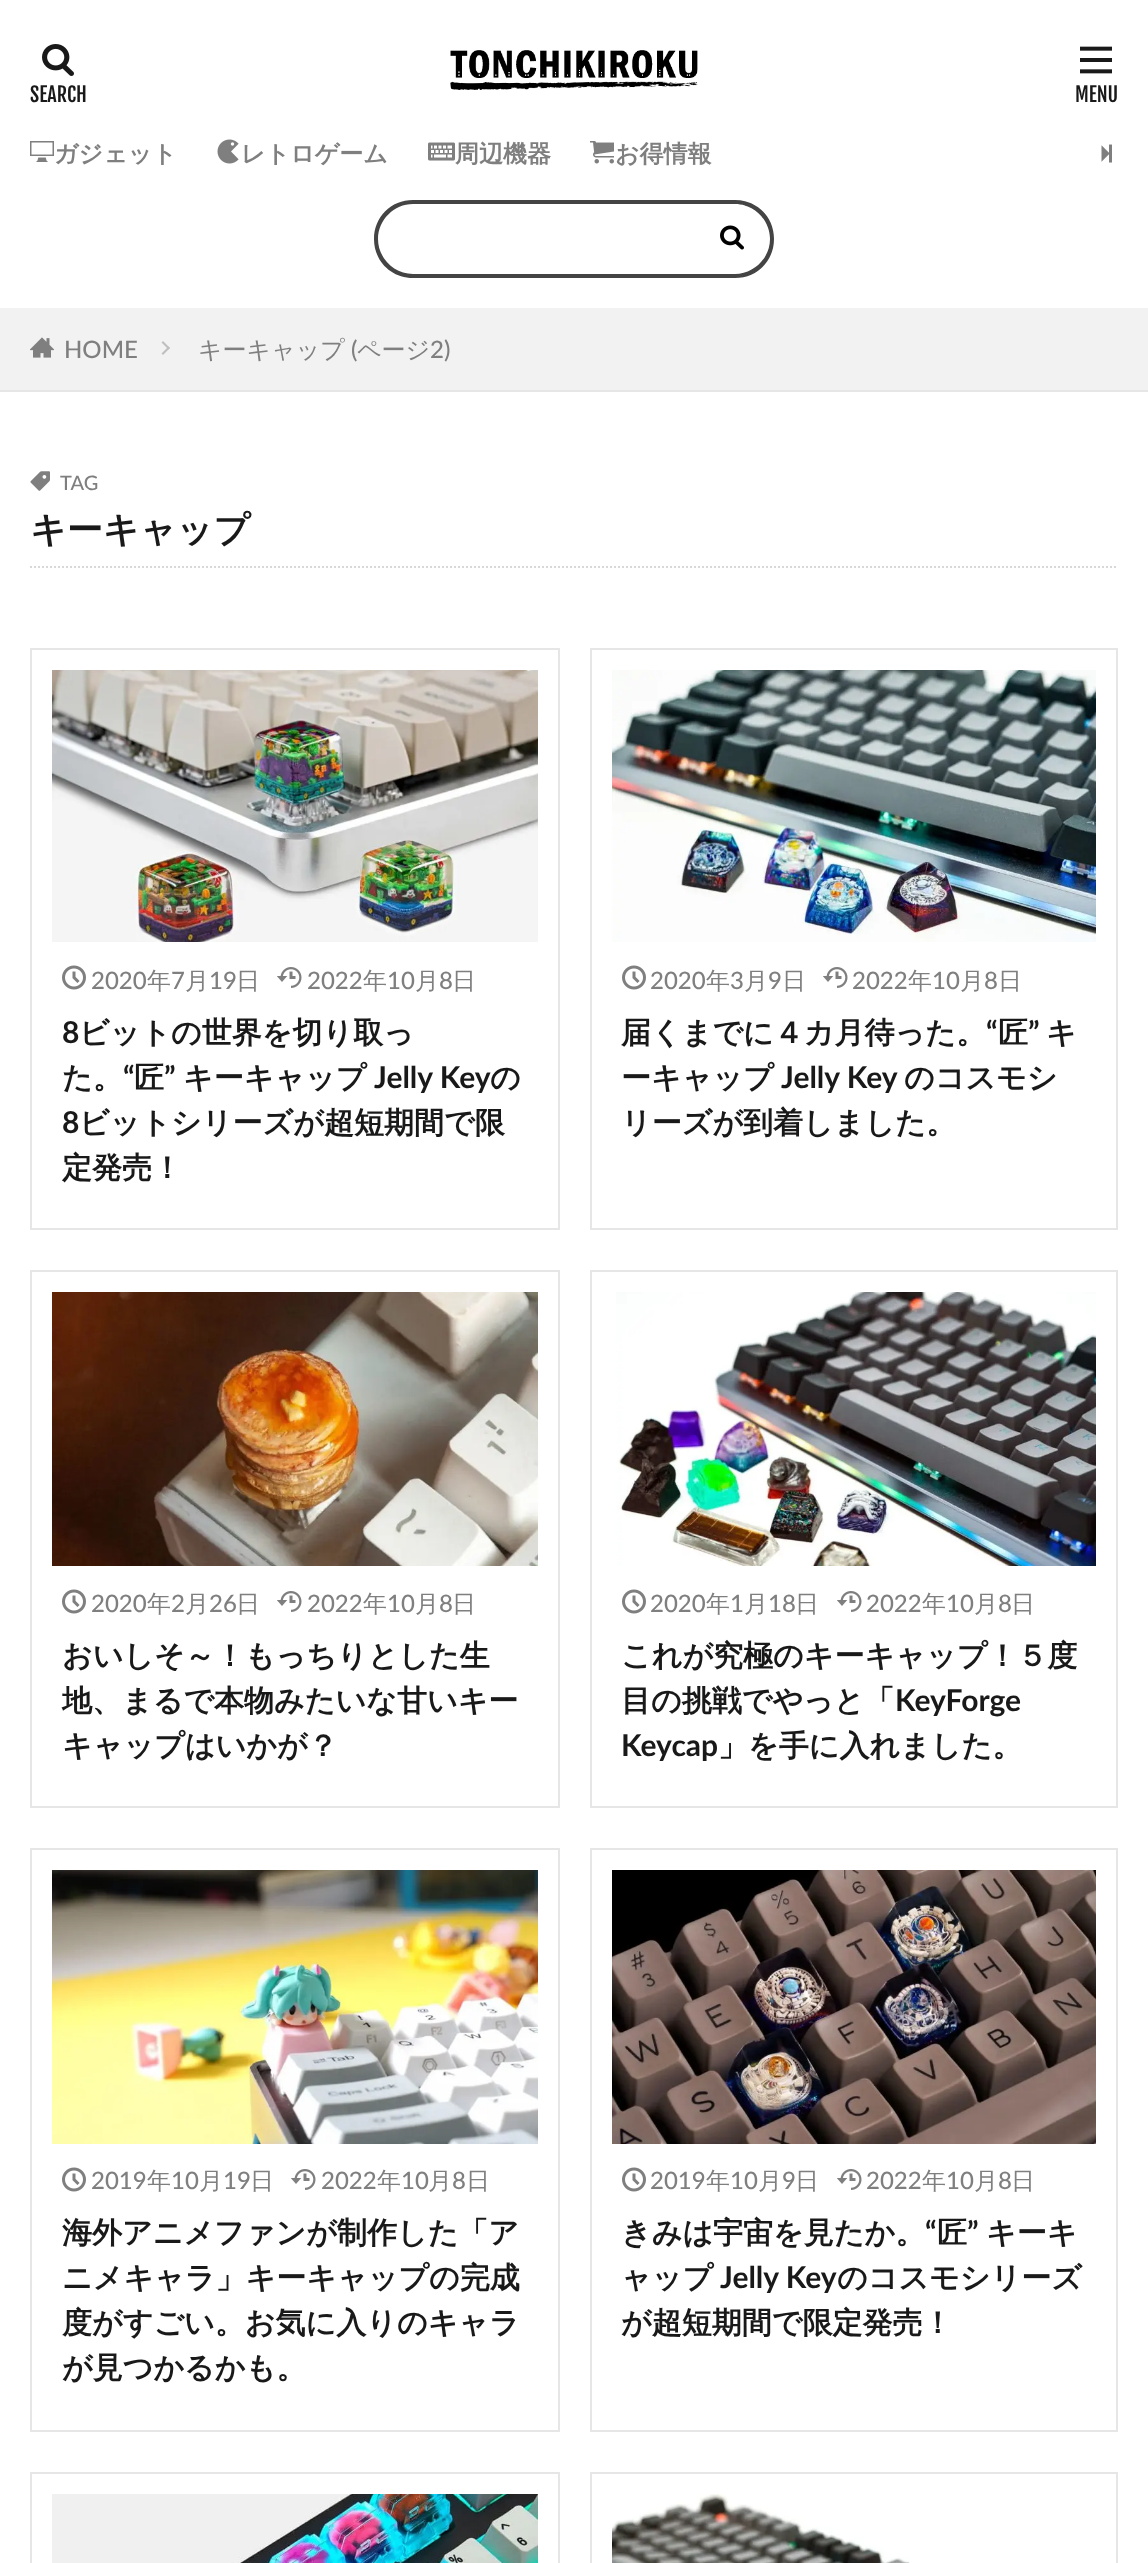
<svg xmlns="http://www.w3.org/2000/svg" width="1148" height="2563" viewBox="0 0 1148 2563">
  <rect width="100%" height="100%" fill="rgb(255,255,255)"/>
  <image x="450" y="50" width="248" height="40" href="pic1.png"/>
  <image x="42" y="44" width="32" height="32" href="pic2.png"/>
  <text x="30" y="102" font-family="Fjalla One" font-size="20" fill="rgb(25,25,25)">SEARCH</text>
  <image x="1080" y="46" width="32" height="28" href="pic3.png"/>
  <text x="1075" y="102" font-family="Fjalla One" font-size="20" fill="rgb(25,25,25)">MENU</text>
  <image x="30" y="141" width="24" height="21" href="pic4.png"/>
  <text x="54" y="162" font-family="WenQuanYi Zen Hei" font-size="24" font-weight="bold" fill="rgb(127,127,127)">ガジェット</text>
  <image x="217" y="139" width="22" height="25" href="pic5.png"/>
  <text x="241" y="162" font-family="WenQuanYi Zen Hei" font-size="24" font-weight="bold" fill="rgb(127,127,127)">レトロゲーム</text>
  <image x="428" y="142" width="27" height="19" href="pic6.png"/>
  <text x="455" y="162" font-family="WenQuanYi Zen Hei" font-size="24" font-weight="bold" fill="rgb(127,127,127)">周辺機器</text>
  <image x="590" y="141" width="24" height="23" href="pic7.png"/>
  <text x="615" y="162" font-family="WenQuanYi Zen Hei" font-size="24" font-weight="bold" fill="rgb(127,127,127)">お得情報</text>
  <image x="1101" y="144" width="11" height="19" href="pic8.png"/>
  <path d="M413 200H694V278H413C391 278 374 261 374 239C374 217 391 200 413 200ZM413 204H694V274H413C394 274 378 258 378 239C378 220 394 204 413 204Z" fill="rgb(68,68,68)" fill-rule="evenodd"/>
  <path d="M694 200H735C757 200 774 217 774 239C774 261 757 278 735 278H694ZM694 204H735C754 204 770 220 770 239C770 258 754 274 735 274H694Z" fill="rgb(68,68,68)" fill-rule="evenodd"/>
  <image x="720" y="225" width="24" height="25" href="pic9.png"/>
  <rect x="0" y="308" width="1148" height="82" fill="rgb(242,242,242)"/>
  <rect x="0" y="390" width="1148" height="2" fill="rgb(230,230,230)"/>
  <image x="30" y="337" width="24" height="21" href="pic10.png"/>
  <text x="64" y="358" font-family="Lato" font-size="24" font-weight="500" fill="rgb(127,127,127)">HOME</text>
  <path d="M163 341L170 348L168.5 349.5L161.5 342.5Z" fill="rgb(191,191,191)"/>
  <path d="M168.5 346.5L170 348L163 355L161.5 353.5Z" fill="rgb(191,191,191)"/>
  <text x="198" y="358" font-family="WenQuanYi Zen Hei" font-size="24" font-weight="500" fill="rgb(127,127,127)">キーキャップ</text>
  <text x="351" y="358" font-family="Lato" font-size="24" font-weight="500" fill="rgb(127,127,127)">(</text>
  <text x="357" y="358" font-family="WenQuanYi Zen Hei" font-size="24" font-weight="500" fill="rgb(127,127,127)">ページ</text>
  <text x="430" y="358" font-family="Lato" font-size="24" font-weight="500" fill="rgb(127,127,127)">2)</text>
  <image x="30" y="471" width="20" height="20" href="pic11.png"/>
  <text x="60" y="490" font-family="Lato" font-size="20" font-weight="500" fill="rgb(127,127,127)">TAG</text>
  <path d="M30 567H1118" fill="none" stroke="rgb(216,216,216)" stroke-width="2" stroke-dasharray="2 2"/>
  <text x="30" y="542" font-family="WenQuanYi Zen Hei" font-size="36" font-weight="bold" fill="rgb(25,25,25)">キーキャップ</text>
  <rect x="31" y="649" width="528" height="580" fill="none" stroke="rgb(230,230,230)" stroke-width="2"/>
  <image x="52" y="670" width="486" height="272" href="pic12.png"/>
  <image x="62" y="965" width="24" height="25" href="pic13.png"/>
  <text x="91" y="989" font-family="Lato" font-size="24" font-weight="500" fill="rgb(127,127,127)">2020</text>
  <text x="147" y="989" font-family="WenQuanYi Zen Hei" font-size="24" font-weight="500" fill="rgb(127,127,127)">年</text>
  <text x="171" y="989" font-family="Lato" font-size="24" font-weight="500" fill="rgb(127,127,127)">7</text>
  <text x="185" y="989" font-family="WenQuanYi Zen Hei" font-size="24" font-weight="500" fill="rgb(127,127,127)">月</text>
  <text x="209" y="989" font-family="Lato" font-size="24" font-weight="500" fill="rgb(127,127,127)">19</text>
  <text x="236" y="989" font-family="WenQuanYi Zen Hei" font-size="24" font-weight="500" fill="rgb(127,127,127)">日</text>
  <image x="277" y="967" width="25" height="21" href="pic14.png"/>
  <text x="307" y="989" font-family="Lato" font-size="24" font-weight="500" fill="rgb(127,127,127)">2022</text>
  <text x="363" y="989" font-family="WenQuanYi Zen Hei" font-size="24" font-weight="500" fill="rgb(127,127,127)">年</text>
  <text x="387" y="989" font-family="Lato" font-size="24" font-weight="500" fill="rgb(127,127,127)">10</text>
  <text x="415" y="989" font-family="WenQuanYi Zen Hei" font-size="24" font-weight="500" fill="rgb(127,127,127)">月</text>
  <text x="439" y="989" font-family="Lato" font-size="24" font-weight="500" fill="rgb(127,127,127)">8</text>
  <text x="452" y="989" font-family="WenQuanYi Zen Hei" font-size="24" font-weight="500" fill="rgb(127,127,127)">日</text>
  <text x="62" y="1043" font-family="Lato" font-size="30" font-weight="bold" fill="rgb(25,25,25)">8</text>
  <g font-family="WenQuanYi Zen Hei" font-size="30" font-weight="bold" fill="rgb(25,25,25)">
    <text x="79" y="1043">ビットの世界を切り取っ</text>
    <text x="62" y="1088">た。</text>
  </g>
  <text x="123" y="1088" font-family="Lato" font-size="30" font-weight="bold" fill="rgb(25,25,25)">“</text>
  <text x="134" y="1088" font-family="WenQuanYi Zen Hei" font-size="30" font-weight="bold" fill="rgb(25,25,25)">匠</text>
  <text x="164" y="1088" font-family="Lato" font-size="30" font-weight="bold" fill="rgb(25,25,25)">”</text>
  <text x="183" y="1088" font-family="WenQuanYi Zen Hei" font-size="30" font-weight="bold" fill="rgb(25,25,25)">キーキャップ</text>
  <text x="374" y="1088" font-family="Lato" font-size="30" font-weight="bold" fill="rgb(25,25,25)">Jelly Key</text>
  <text x="490" y="1088" font-family="WenQuanYi Zen Hei" font-size="30" font-weight="bold" fill="rgb(25,25,25)">の</text>
  <text x="62" y="1133" font-family="Lato" font-size="30" font-weight="bold" fill="rgb(25,25,25)">8</text>
  <g font-family="WenQuanYi Zen Hei" font-size="30" font-weight="bold" fill="rgb(25,25,25)">
    <text x="79" y="1133">ビットシリーズが超短期間で限</text>
    <text x="62" y="1178">定発売！</text>
  </g>
  <rect x="591" y="649" width="526" height="580" fill="none" stroke="rgb(230,230,230)" stroke-width="2"/>
  <image x="612" y="670" width="484" height="272" href="pic15.png"/>
  <image x="622" y="965" width="24" height="25" href="pic13.png"/>
  <text x="650" y="989" font-family="Lato" font-size="24" font-weight="500" fill="rgb(127,127,127)">2020</text>
  <text x="706" y="989" font-family="WenQuanYi Zen Hei" font-size="24" font-weight="500" fill="rgb(127,127,127)">年</text>
  <text x="730" y="989" font-family="Lato" font-size="24" font-weight="500" fill="rgb(127,127,127)">3</text>
  <text x="744" y="989" font-family="WenQuanYi Zen Hei" font-size="24" font-weight="500" fill="rgb(127,127,127)">月</text>
  <text x="768" y="989" font-family="Lato" font-size="24" font-weight="500" fill="rgb(127,127,127)">9</text>
  <text x="782" y="989" font-family="WenQuanYi Zen Hei" font-size="24" font-weight="500" fill="rgb(127,127,127)">日</text>
  <image x="823" y="967" width="25" height="21" href="pic14.png"/>
  <text x="852" y="989" font-family="Lato" font-size="24" font-weight="500" fill="rgb(127,127,127)">2022</text>
  <text x="908" y="989" font-family="WenQuanYi Zen Hei" font-size="24" font-weight="500" fill="rgb(127,127,127)">年</text>
  <text x="932" y="989" font-family="Lato" font-size="24" font-weight="500" fill="rgb(127,127,127)">10</text>
  <text x="960" y="989" font-family="WenQuanYi Zen Hei" font-size="24" font-weight="500" fill="rgb(127,127,127)">月</text>
  <text x="984" y="989" font-family="Lato" font-size="24" font-weight="500" fill="rgb(127,127,127)">8</text>
  <text x="998" y="989" font-family="WenQuanYi Zen Hei" font-size="24" font-weight="500" fill="rgb(127,127,127)">日</text>
  <text x="621" y="1043" font-family="WenQuanYi Zen Hei" font-size="30" font-weight="bold" fill="rgb(25,25,25)">届くまでに４カ月待った。</text>
  <text x="986" y="1043" font-family="Lato" font-size="30" font-weight="bold" fill="rgb(25,25,25)">“</text>
  <text x="998" y="1043" font-family="WenQuanYi Zen Hei" font-size="30" font-weight="bold" fill="rgb(25,25,25)">匠</text>
  <text x="1028" y="1043" font-family="Lato" font-size="30" font-weight="bold" fill="rgb(25,25,25)">”</text>
  <g font-family="WenQuanYi Zen Hei" font-size="30" font-weight="bold" fill="rgb(25,25,25)">
    <text x="1046" y="1043">キ</text>
    <text x="621" y="1088">ーキャップ</text>
  </g>
  <text x="781" y="1088" font-family="Lato" font-size="30" font-weight="bold" fill="rgb(25,25,25)">Jelly Key</text>
  <g font-family="WenQuanYi Zen Hei" font-size="30" font-weight="bold" fill="rgb(25,25,25)">
    <text x="904" y="1088">のコスモシ</text>
    <text x="621" y="1133">リーズが到着しました。</text>
  </g>
  <rect x="31" y="1271" width="528" height="536" fill="none" stroke="rgb(230,230,230)" stroke-width="2"/>
  <image x="52" y="1292" width="486" height="274" href="pic16.png"/>
  <image x="62" y="1589" width="24" height="25" href="pic13.png"/>
  <text x="91" y="1612" font-family="Lato" font-size="24" font-weight="500" fill="rgb(127,127,127)">2020</text>
  <text x="147" y="1612" font-family="WenQuanYi Zen Hei" font-size="24" font-weight="500" fill="rgb(127,127,127)">年</text>
  <text x="171" y="1612" font-family="Lato" font-size="24" font-weight="500" fill="rgb(127,127,127)">2</text>
  <text x="185" y="1612" font-family="WenQuanYi Zen Hei" font-size="24" font-weight="500" fill="rgb(127,127,127)">月</text>
  <text x="209" y="1612" font-family="Lato" font-size="24" font-weight="500" fill="rgb(127,127,127)">26</text>
  <text x="236" y="1612" font-family="WenQuanYi Zen Hei" font-size="24" font-weight="500" fill="rgb(127,127,127)">日</text>
  <image x="277" y="1591" width="25" height="21" href="pic14.png"/>
  <text x="307" y="1612" font-family="Lato" font-size="24" font-weight="500" fill="rgb(127,127,127)">2022</text>
  <text x="363" y="1612" font-family="WenQuanYi Zen Hei" font-size="24" font-weight="500" fill="rgb(127,127,127)">年</text>
  <text x="387" y="1612" font-family="Lato" font-size="24" font-weight="500" fill="rgb(127,127,127)">10</text>
  <text x="415" y="1612" font-family="WenQuanYi Zen Hei" font-size="24" font-weight="500" fill="rgb(127,127,127)">月</text>
  <text x="439" y="1612" font-family="Lato" font-size="24" font-weight="500" fill="rgb(127,127,127)">8</text>
  <text x="452" y="1612" font-family="WenQuanYi Zen Hei" font-size="24" font-weight="500" fill="rgb(127,127,127)">日</text>
  <g font-family="WenQuanYi Zen Hei" font-size="30" font-weight="bold" fill="rgb(25,25,25)">
    <text>
      <tspan x="62" y="1666">おいしそ～！もっちりとした生</tspan>
      <tspan x="62" y="1711">地、まるで本物みたいな甘いキー</tspan>
      <tspan x="62" y="1756">キャップはいかが？</tspan>
    </text>
  </g>
  <rect x="591" y="1271" width="526" height="536" fill="none" stroke="rgb(230,230,230)" stroke-width="2"/>
  <image x="616" y="1292" width="480" height="274" href="pic17.png"/>
  <image x="622" y="1589" width="24" height="25" href="pic13.png"/>
  <text x="650" y="1612" font-family="Lato" font-size="24" font-weight="500" fill="rgb(127,127,127)">2020</text>
  <text x="706" y="1612" font-family="WenQuanYi Zen Hei" font-size="24" font-weight="500" fill="rgb(127,127,127)">年</text>
  <text x="730" y="1612" font-family="Lato" font-size="24" font-weight="500" fill="rgb(127,127,127)">1</text>
  <text x="744" y="1612" font-family="WenQuanYi Zen Hei" font-size="24" font-weight="500" fill="rgb(127,127,127)">月</text>
  <text x="768" y="1612" font-family="Lato" font-size="24" font-weight="500" fill="rgb(127,127,127)">18</text>
  <text x="795" y="1612" font-family="WenQuanYi Zen Hei" font-size="24" font-weight="500" fill="rgb(127,127,127)">日</text>
  <image x="837" y="1591" width="25" height="21" href="pic14.png"/>
  <text x="866" y="1612" font-family="Lato" font-size="24" font-weight="500" fill="rgb(127,127,127)">2022</text>
  <text x="922" y="1612" font-family="WenQuanYi Zen Hei" font-size="24" font-weight="500" fill="rgb(127,127,127)">年</text>
  <text x="946" y="1612" font-family="Lato" font-size="24" font-weight="500" fill="rgb(127,127,127)">10</text>
  <text x="974" y="1612" font-family="WenQuanYi Zen Hei" font-size="24" font-weight="500" fill="rgb(127,127,127)">月</text>
  <text x="998" y="1612" font-family="Lato" font-size="24" font-weight="500" fill="rgb(127,127,127)">8</text>
  <text x="1011" y="1612" font-family="WenQuanYi Zen Hei" font-size="24" font-weight="500" fill="rgb(127,127,127)">日</text>
  <g font-family="WenQuanYi Zen Hei" font-size="30" font-weight="bold" fill="rgb(25,25,25)">
    <text>
      <tspan x="621" y="1666">これが究極のキーキャップ！５度</tspan>
      <tspan x="621" y="1711">目の挑戦でやっと「</tspan>
    </text>
  </g>
  <g font-family="Lato" font-size="30" font-weight="bold" fill="rgb(25,25,25)">
    <text x="895" y="1711">KeyForge</text>
    <text x="621" y="1756">Keycap</text>
  </g>
  <text x="718" y="1756" font-family="WenQuanYi Zen Hei" font-size="30" font-weight="bold" fill="rgb(25,25,25)">」を手に入れました。</text>
  <rect x="31" y="1849" width="528" height="582" fill="none" stroke="rgb(230,230,230)" stroke-width="2"/>
  <image x="52" y="1870" width="486" height="274" href="pic18.png"/>
  <image x="62" y="2167" width="24" height="25" href="pic13.png"/>
  <text x="91" y="2189" font-family="Lato" font-size="24" font-weight="500" fill="rgb(127,127,127)">2019</text>
  <text x="147" y="2189" font-family="WenQuanYi Zen Hei" font-size="24" font-weight="500" fill="rgb(127,127,127)">年</text>
  <text x="171" y="2189" font-family="Lato" font-size="24" font-weight="500" fill="rgb(127,127,127)">10</text>
  <text x="199" y="2189" font-family="WenQuanYi Zen Hei" font-size="24" font-weight="500" fill="rgb(127,127,127)">月</text>
  <text x="223" y="2189" font-family="Lato" font-size="24" font-weight="500" fill="rgb(127,127,127)">19</text>
  <text x="250" y="2189" font-family="WenQuanYi Zen Hei" font-size="24" font-weight="500" fill="rgb(127,127,127)">日</text>
  <image x="291" y="2169" width="25" height="21" href="pic14.png"/>
  <text x="321" y="2189" font-family="Lato" font-size="24" font-weight="500" fill="rgb(127,127,127)">2022</text>
  <text x="377" y="2189" font-family="WenQuanYi Zen Hei" font-size="24" font-weight="500" fill="rgb(127,127,127)">年</text>
  <text x="401" y="2189" font-family="Lato" font-size="24" font-weight="500" fill="rgb(127,127,127)">10</text>
  <text x="428" y="2189" font-family="WenQuanYi Zen Hei" font-size="24" font-weight="500" fill="rgb(127,127,127)">月</text>
  <text x="452" y="2189" font-family="Lato" font-size="24" font-weight="500" fill="rgb(127,127,127)">8</text>
  <text x="466" y="2189" font-family="WenQuanYi Zen Hei" font-size="24" font-weight="500" fill="rgb(127,127,127)">日</text>
  <g font-family="WenQuanYi Zen Hei" font-size="30" font-weight="bold" fill="rgb(25,25,25)">
    <text>
      <tspan x="62" y="2243">海外アニメファンが制作した「ア</tspan>
      <tspan x="62" y="2288">ニメキャラ」キーキャップの完成</tspan>
      <tspan x="62" y="2333">度がすごい。お気に入りのキャラ</tspan>
      <tspan x="62" y="2378">が見つかるかも。</tspan>
    </text>
  </g>
  <rect x="591" y="1849" width="526" height="582" fill="none" stroke="rgb(230,230,230)" stroke-width="2"/>
  <image x="612" y="1870" width="484" height="274" href="pic19.png"/>
  <image x="622" y="2167" width="24" height="25" href="pic13.png"/>
  <text x="650" y="2189" font-family="Lato" font-size="24" font-weight="500" fill="rgb(127,127,127)">2019</text>
  <text x="706" y="2189" font-family="WenQuanYi Zen Hei" font-size="24" font-weight="500" fill="rgb(127,127,127)">年</text>
  <text x="730" y="2189" font-family="Lato" font-size="24" font-weight="500" fill="rgb(127,127,127)">10</text>
  <text x="758" y="2189" font-family="WenQuanYi Zen Hei" font-size="24" font-weight="500" fill="rgb(127,127,127)">月</text>
  <text x="782" y="2189" font-family="Lato" font-size="24" font-weight="500" fill="rgb(127,127,127)">9</text>
  <text x="795" y="2189" font-family="WenQuanYi Zen Hei" font-size="24" font-weight="500" fill="rgb(127,127,127)">日</text>
  <image x="837" y="2169" width="25" height="21" href="pic14.png"/>
  <text x="866" y="2189" font-family="Lato" font-size="24" font-weight="500" fill="rgb(127,127,127)">2022</text>
  <text x="922" y="2189" font-family="WenQuanYi Zen Hei" font-size="24" font-weight="500" fill="rgb(127,127,127)">年</text>
  <text x="946" y="2189" font-family="Lato" font-size="24" font-weight="500" fill="rgb(127,127,127)">10</text>
  <text x="974" y="2189" font-family="WenQuanYi Zen Hei" font-size="24" font-weight="500" fill="rgb(127,127,127)">月</text>
  <text x="998" y="2189" font-family="Lato" font-size="24" font-weight="500" fill="rgb(127,127,127)">8</text>
  <text x="1011" y="2189" font-family="WenQuanYi Zen Hei" font-size="24" font-weight="500" fill="rgb(127,127,127)">日</text>
  <text x="621" y="2243" font-family="WenQuanYi Zen Hei" font-size="30" font-weight="bold" fill="rgb(25,25,25)">きみは宇宙を見たか。</text>
  <text x="925" y="2243" font-family="Lato" font-size="30" font-weight="bold" fill="rgb(25,25,25)">“</text>
  <text x="937" y="2243" font-family="WenQuanYi Zen Hei" font-size="30" font-weight="bold" fill="rgb(25,25,25)">匠</text>
  <text x="967" y="2243" font-family="Lato" font-size="30" font-weight="bold" fill="rgb(25,25,25)">”</text>
  <g font-family="WenQuanYi Zen Hei" font-size="30" font-weight="bold" fill="rgb(25,25,25)">
    <text x="986" y="2243">キーキ</text>
    <text x="621" y="2288">ャップ</text>
  </g>
  <text x="720" y="2288" font-family="Lato" font-size="30" font-weight="bold" fill="rgb(25,25,25)">Jelly Key</text>
  <g font-family="WenQuanYi Zen Hei" font-size="30" font-weight="bold" fill="rgb(25,25,25)">
    <text x="837" y="2288">のコスモシリーズ</text>
    <text x="621" y="2333">が超短期間で限定発売！</text>
  </g>
  <rect x="31" y="2473" width="528" height="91" fill="none" stroke="rgb(230,230,230)" stroke-width="2"/>
  <image x="52" y="2494" width="486" height="69" href="pic20.png"/>
  <rect x="591" y="2473" width="526" height="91" fill="none" stroke="rgb(230,230,230)" stroke-width="2"/>
  <image x="612" y="2494" width="298" height="69" href="pic21.png"/>
</svg>
